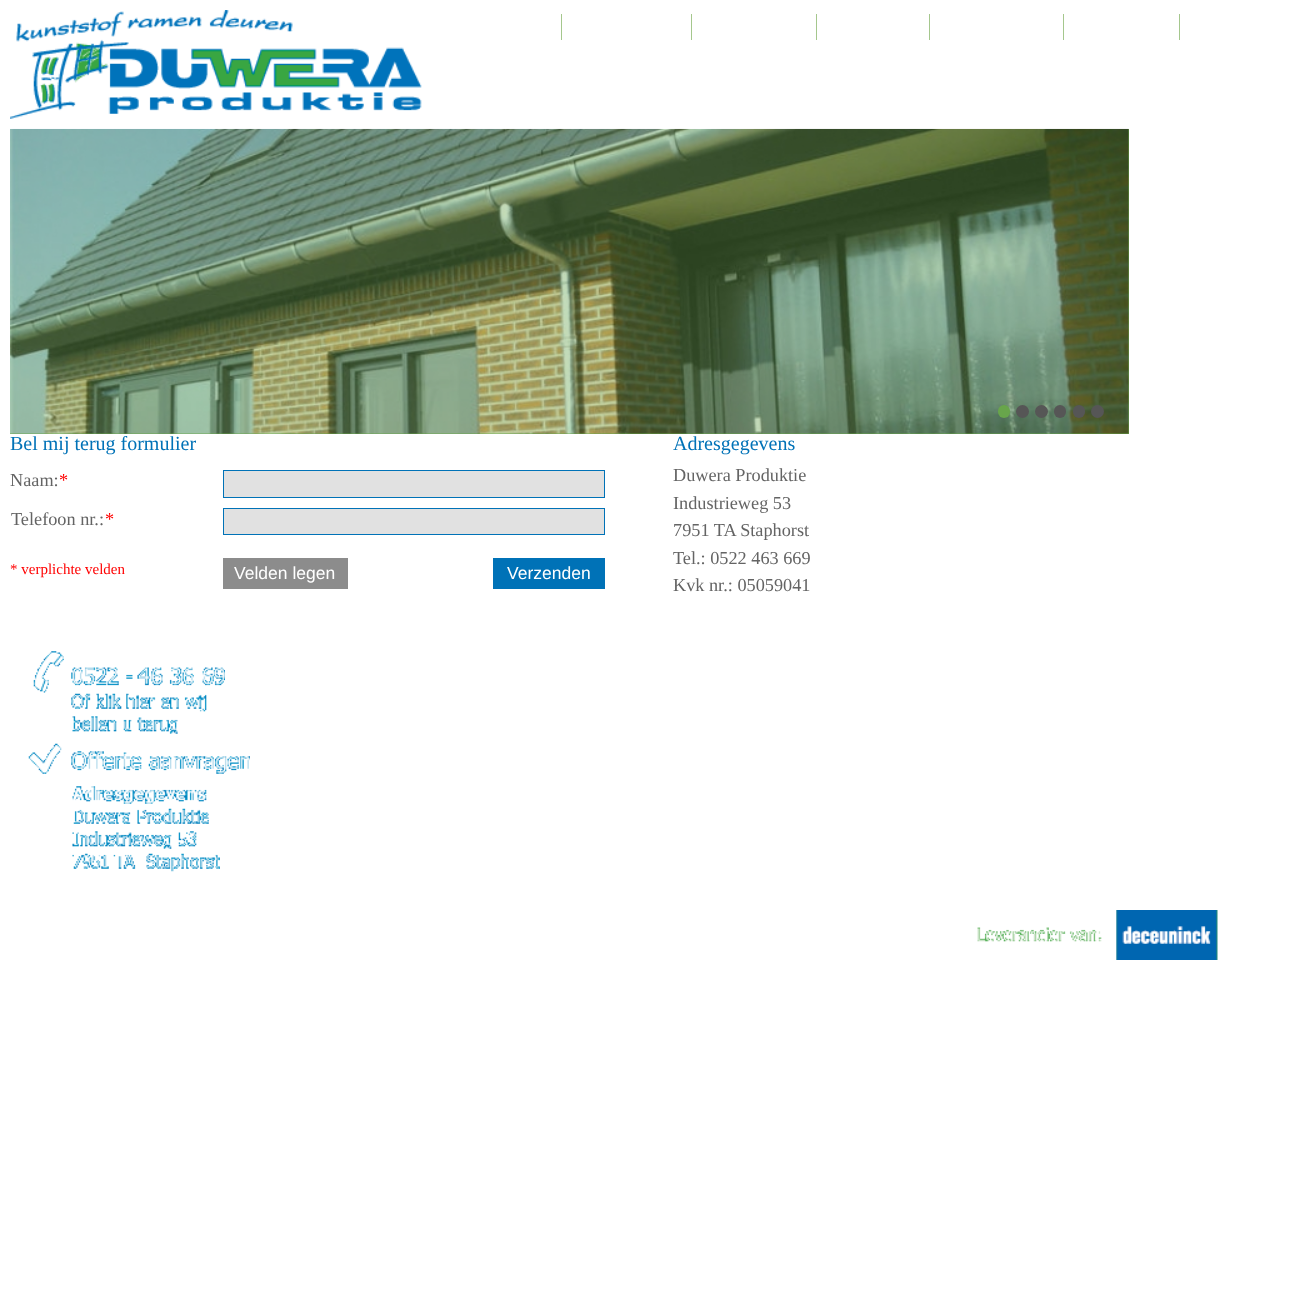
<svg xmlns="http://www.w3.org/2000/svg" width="1290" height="1290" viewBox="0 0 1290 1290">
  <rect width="100%" height="100%" fill="rgb(255,255,255)"/>
  <image x="10" y="10" width="412" height="109" href="pic1.png"/>
  <rect x="561" y="14" width="1" height="26" fill="rgb(165,199,141)"/>
  <rect x="691" y="14" width="1" height="26" fill="rgb(165,199,141)"/>
  <rect x="816" y="14" width="1" height="26" fill="rgb(165,199,141)"/>
  <rect x="929" y="14" width="1" height="26" fill="rgb(165,199,141)"/>
  <rect x="1063" y="14" width="1" height="26" fill="rgb(165,199,141)"/>
  <rect x="1179" y="14" width="1" height="26" fill="rgb(165,199,141)"/>
  <rect x="10" y="129" width="1119" height="305" fill="rgb(104,165,75)"/>
  <image x="10" y="128" width="1119" height="306" href="pic2.png"/>
  <rect x="998" y="405" width="12" height="13" rx="6" fill="rgb(104,165,75)"/>
  <circle cx="1022.5" cy="411.5" r="6.5" fill="rgb(86,86,86)"/>
  <circle cx="1041.5" cy="411.5" r="6.5" fill="rgb(86,86,86)"/>
  <rect x="1054" y="405" width="12" height="13" rx="6" fill="rgb(86,86,86)"/>
  <rect x="1073" y="405" width="12" height="13" rx="6" fill="rgb(86,86,86)"/>
  <circle cx="1097.5" cy="411.5" r="6.5" fill="rgb(86,86,86)"/>
  <g font-family="Liberation Serif" font-size="20" fill="rgb(0,114,183)">
    <text x="10" y="450">Bel mij terug formulier</text>
    <text x="673" y="450">Adresgegevens</text>
  </g>
  <text x="10" y="486" font-family="Liberation Serif" font-size="18.25" fill="rgb(100,100,100)">Naam:</text>
  <text x="59" y="486" font-family="Liberation Serif" font-size="18.25" fill="rgb(255,0,0)">*</text>
  <rect x="223.5" y="470.5" width="381" height="27" fill="rgb(225,225,225)" stroke="rgb(0,114,183)"/>
  <g font-family="Liberation Serif" font-size="18.25" fill="rgb(100,100,100)">
    <text>
      <tspan x="673" y="481">Duwera Produktie</tspan>
      <tspan x="673" y="509">Industrieweg 53</tspan>
      <tspan x="673" y="536">7951 TA Staphorst</tspan>
      <tspan x="673" y="564">Tel.: 0522 463 669</tspan>
      <tspan x="673" y="591">Kvk nr.: 05059041</tspan>
    </text>
    <text x="11" y="525">Telefoon nr.:</text>
  </g>
  <text x="105" y="525" font-family="Liberation Serif" font-size="18.25" fill="rgb(255,0,0)">*</text>
  <rect x="223.5" y="508.5" width="381" height="26" fill="rgb(225,225,225)" stroke="rgb(0,114,183)"/>
  <text x="10" y="574" font-family="Liberation Serif" font-size="15" fill="rgb(255,0,0)">* verplichte velden</text>
  <rect x="223" y="558" width="125" height="31" fill="rgb(140,140,140)"/>
  <text x="234" y="579" font-family="Liberation Sans" font-size="17.5" fill="rgb(255,255,255)">Velden legen</text>
  <rect x="493" y="558" width="112" height="31" fill="rgb(0,114,183)"/>
  <text x="507" y="579" font-family="Liberation Sans" font-size="17.5" fill="rgb(255,255,255)">Verzenden</text>
  <image x="33" y="651" width="192" height="83" href="pic3.png"/>
  <image x="28" y="743" width="222" height="31" href="pic4.png"/>
  <image x="72" y="786" width="148" height="86" href="pic5.png"/>
  <image x="977" y="910" width="241" height="50" href="pic6.png"/>
</svg>
